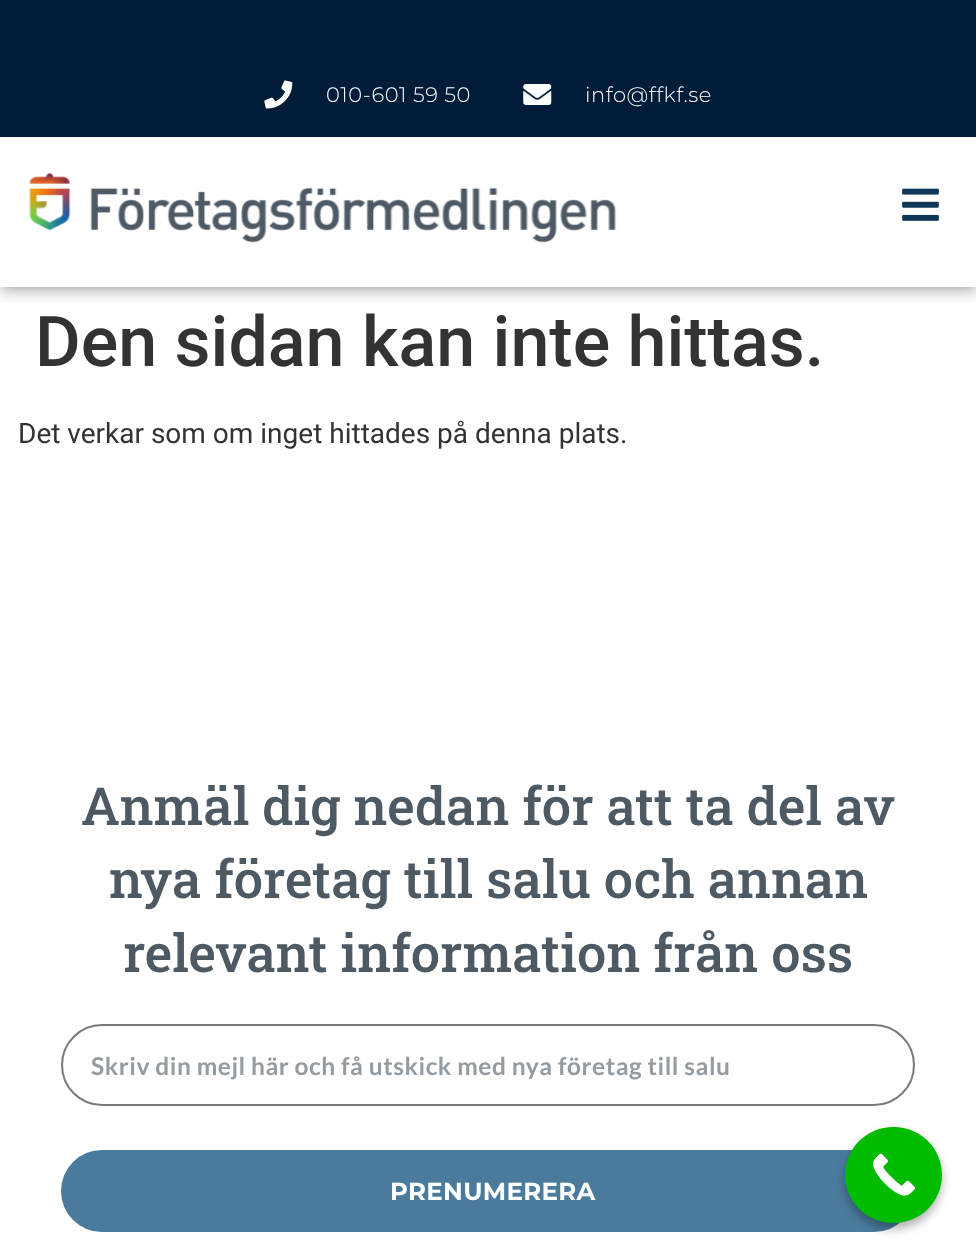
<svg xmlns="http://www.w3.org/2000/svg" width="976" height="1249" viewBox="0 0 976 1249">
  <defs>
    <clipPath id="clip1"><rect x="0" y="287" width="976" height="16"/></clipPath>
  </defs>
  <rect width="100%" height="100%" fill="rgb(255,255,255)"/>
  <g clip-path="url(#clip1)">
    <rect x="0" y="0" width="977" height="287" fill="rgba(0,0,0,0.5)" filter="blur(9px)"/>
  </g>
  <rect x="0" y="0" width="976" height="137" fill="rgb(0,28,56)"/>
  <image x="264" y="80" width="29" height="29" href="pic1.png"/>
  <text x="326" y="102" font-family="Montserrat" font-size="21" font-weight="300" letter-spacing="0.53" fill="rgb(255,255,255)">010-601 59 50</text>
  <image x="523" y="84" width="29" height="21" href="pic2.png"/>
  <text x="585" y="102" font-family="Montserrat" font-size="21" font-weight="300" letter-spacing="0.53" fill="rgb(255,255,255)">info@ffkf.se</text>
  <image x="29" y="172" width="588" height="71" href="pic3.png"/>
  <image x="902" y="188" width="37" height="33" href="pic4.png"/>
  <text x="35" y="366" font-family="Roboto" font-size="70" font-weight="500" fill="rgb(51,51,51)">Den sidan kan inte hittas.</text>
  <text x="18" y="443" font-family="Roboto" font-size="28" fill="rgb(51,51,51)">Det verkar som om inget hittades på denna plats.</text>
  <g font-family="Roboto Slab" font-size="52.5" font-weight="500" fill="rgb(77,89,99)">
    <text x="81" y="825">Anmäl dig nedan för att ta del av</text>
    <text x="109" y="898">nya företag till salu och annan</text>
    <text x="123" y="972">relevant information från oss</text>
  </g>
  <rect x="62" y="1025" width="852" height="80" rx="40" fill="none" stroke="rgb(122,122,122)" stroke-width="2"/>
  <text x="91" y="1075" font-family="Lato" font-size="24.5" font-weight="bold" letter-spacing="0.53" fill="rgb(148,155,161)">Skriv din mejl här och få utskick med nya företag till salu</text>
  <rect x="61" y="1150" width="854" height="82" rx="41" fill="rgb(74,123,157)"/>
  <text x="390" y="1200" font-family="Montserrat" font-size="24.5" font-weight="bold" letter-spacing="0.3" fill="rgb(255,255,255)">PRENUMERERA</text>
  <rect x="845" y="1132" width="97" height="97" rx="48.5" fill="rgba(0,0,0,0.3)" filter="blur(5px)"/>
  <rect x="845" y="1127" width="97" height="96" rx="48" fill="rgb(0,187,0)"/>
  <image x="873" y="1153" width="42" height="43" href="pic5.png"/>
</svg>
